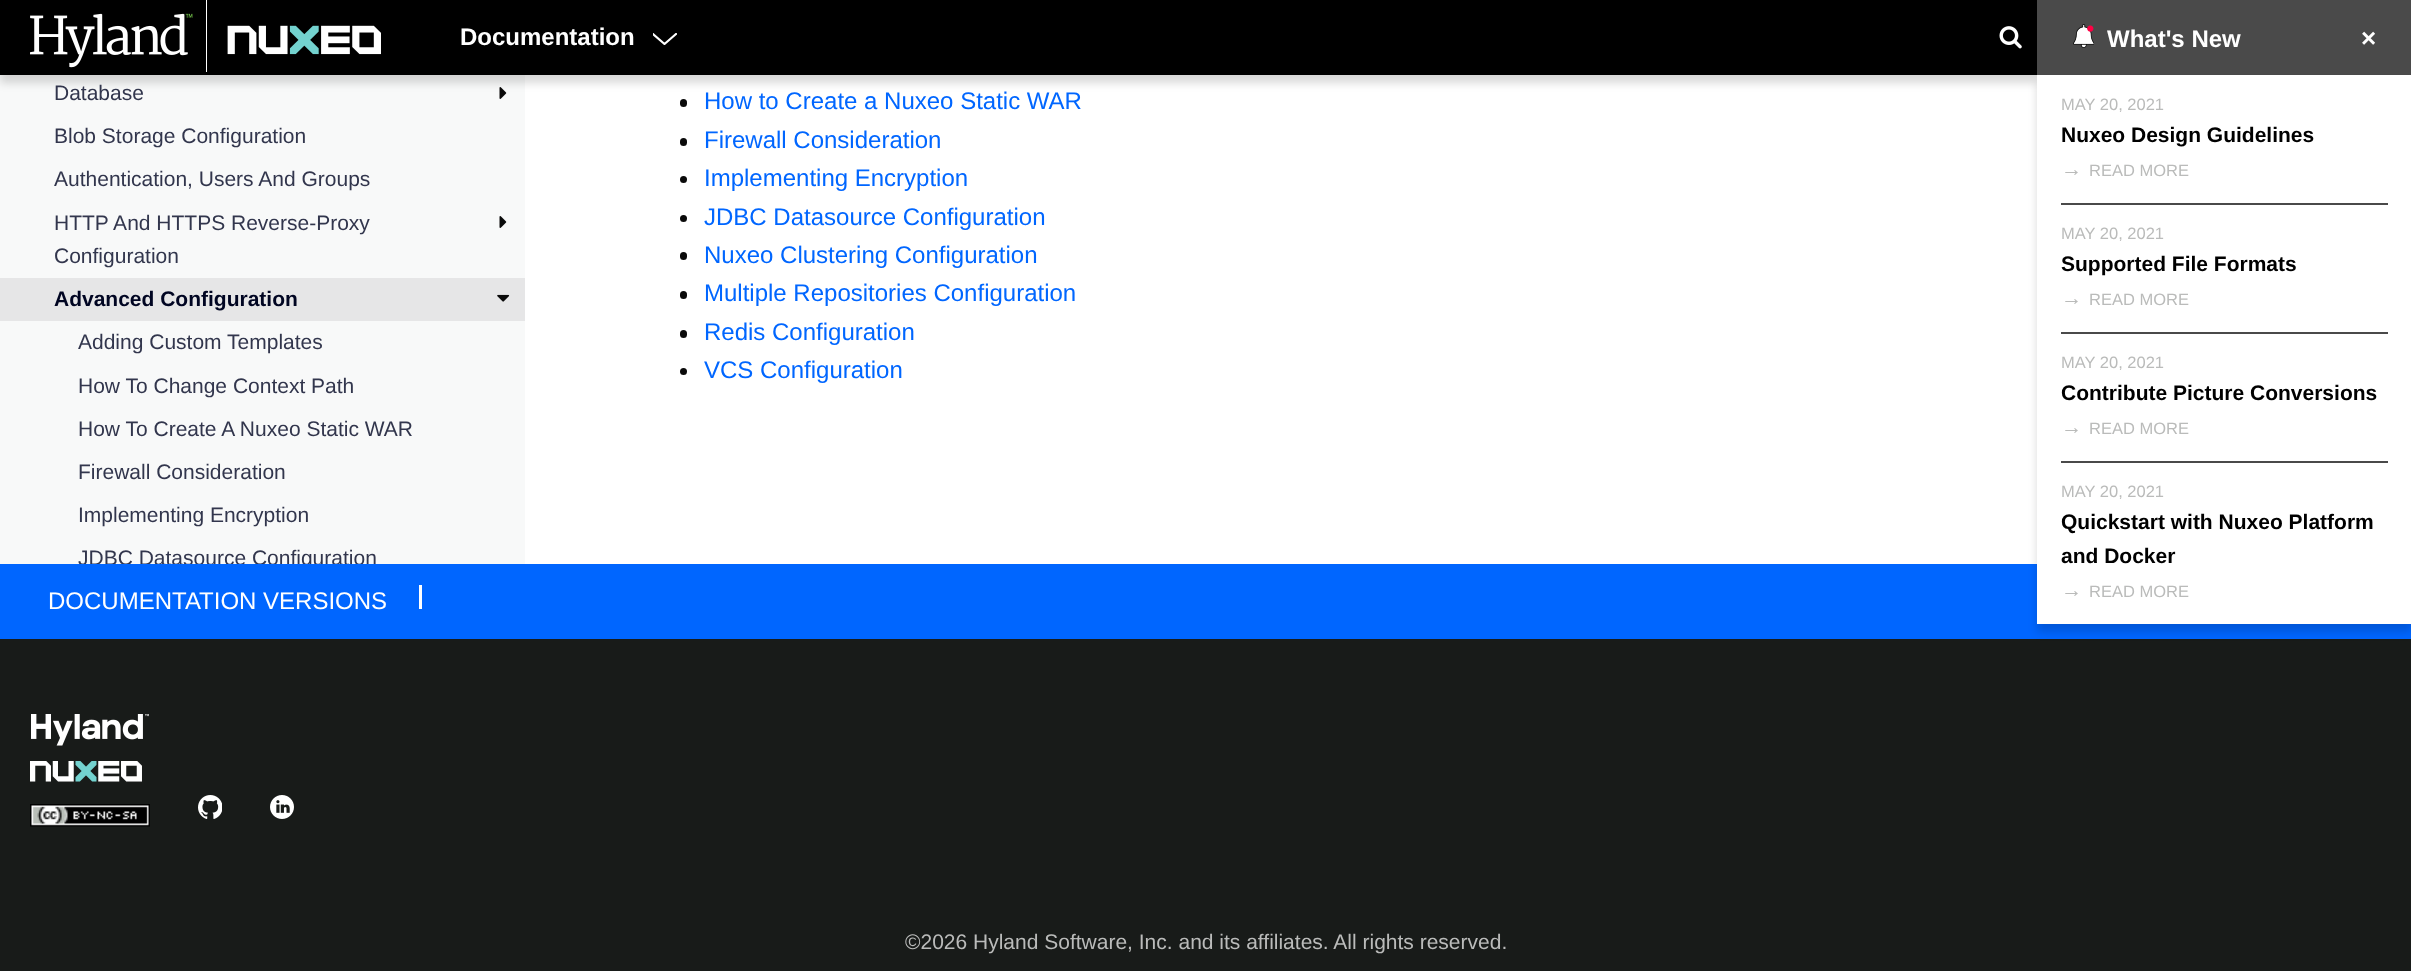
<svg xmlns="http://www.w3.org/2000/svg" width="2411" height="971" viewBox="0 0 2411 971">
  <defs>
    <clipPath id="clip1"><rect x="653" y="33" width="24" height="12"/></clipPath>
    <clipPath id="clip2"><rect x="0" y="0" width="525" height="564"/></clipPath>
  </defs>
  <rect width="100%" height="100%" fill="rgb(255,255,255)"/>
  <rect x="0" y="75" width="525" height="489" fill="rgb(248,249,249)"/>
  <image x="499" y="87" width="8" height="12" href="pic4.png"/>
  <rect x="0" y="8" width="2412" height="75" fill="rgba(0,0,0,0.15)" filter="blur(4px)"/>
  <rect x="0" y="0" width="2037" height="75" fill="rgb(0,0,0)"/>
  <image x="30" y="0" width="351" height="72" href="pic1.png"/>
  <text x="460" y="45" font-family="Liberation Sans" font-size="24" font-weight="bold" fill="rgb(255,255,255)">Documentation</text>
  <g clip-path="url(#clip1)">
    <path d="M653 34L664.5 44L676 34L664.5 44Z" fill="none" stroke="rgb(255,255,255)" stroke-width="2.2" stroke-linecap="round" stroke-linejoin="round"/>
  </g>
  <image x="1999" y="26" width="23" height="23" href="pic2.png"/>
  <rect x="2037" y="0" width="374" height="75" fill="rgb(74,74,74)"/>
  <image x="2073" y="24" width="21" height="24" href="pic3.png"/>
  <text x="2107" y="47" font-family="Liberation Sans" font-size="24" font-weight="bold" fill="rgb(255,255,255)">What's New</text>
  <text x="2361" y="47" font-family="Liberation Sans" font-size="26" font-weight="bold" fill="rgb(255,255,255)">×</text>
  <rect x="0" y="564" width="2411" height="75" fill="rgb(0,102,255)"/>
  <rect x="0" y="639" width="2411" height="332" fill="rgb(24,27,25)"/>
  <rect x="2037" y="83" width="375" height="549" fill="rgba(0,0,0,0.15)" filter="blur(4px)"/>
  <rect x="2037" y="75" width="374" height="549" fill="rgb(255,255,255)"/>
  <text x="2061" y="110" font-family="Liberation Sans" font-size="16.5" fill="rgb(186,187,186)">MAY 20, 2021</text>
  <text x="2061" y="142" font-family="Liberation Sans" font-size="21" font-weight="bold" fill="rgb(0,0,0)">Nuxeo Design Guidelines</text>
  <rect x="2061" y="203" width="327" height="2" fill="rgb(74,74,74)"/>
  <text x="2061" y="176" font-family="Liberation Sans" font-size="21" fill="rgb(186,187,186)">→</text>
  <g font-family="Liberation Sans" font-size="16.5" fill="rgb(186,187,186)">
    <text x="2089" y="176">READ MORE</text>
    <text x="2061" y="239">MAY 20, 2021</text>
  </g>
  <text x="2061" y="271" font-family="Liberation Sans" font-size="21" font-weight="bold" fill="rgb(0,0,0)">Supported File Formats</text>
  <rect x="2061" y="332" width="327" height="2" fill="rgb(74,74,74)"/>
  <text x="2061" y="305" font-family="Liberation Sans" font-size="21" fill="rgb(186,187,186)">→</text>
  <g font-family="Liberation Sans" font-size="16.5" fill="rgb(186,187,186)">
    <text x="2089" y="305">READ MORE</text>
    <text x="2061" y="368">MAY 20, 2021</text>
  </g>
  <text x="2061" y="400" font-family="Liberation Sans" font-size="21" font-weight="bold" fill="rgb(0,0,0)">Contribute Picture Conversions</text>
  <rect x="2061" y="461" width="327" height="2" fill="rgb(74,74,74)"/>
  <text x="2061" y="434" font-family="Liberation Sans" font-size="21" fill="rgb(186,187,186)">→</text>
  <g font-family="Liberation Sans" font-size="16.5" fill="rgb(186,187,186)">
    <text x="2089" y="434">READ MORE</text>
    <text x="2061" y="497">MAY 20, 2021</text>
  </g>
  <g font-family="Liberation Sans" font-size="21" font-weight="bold" fill="rgb(0,0,0)">
    <text>
      <tspan x="2061" y="529">Quickstart with Nuxeo Platform</tspan>
      <tspan x="2061" y="563">and Docker</tspan>
    </text>
  </g>
  <text x="2061" y="597" font-family="Liberation Sans" font-size="21" fill="rgb(186,187,186)">→</text>
  <text x="2089" y="597" font-family="Liberation Sans" font-size="16.5" fill="rgb(186,187,186)">READ MORE</text>
  <g font-family="Liberation Sans" font-size="21" fill="rgb(50,54,77)">
    <text x="54" y="100">Database</text>
    <text x="54" y="143">Blob Storage Configuration</text>
    <text x="54" y="186">Authentication, Users And Groups</text>
    <text>
      <tspan x="54" y="230">HTTP And HTTPS Reverse-Proxy</tspan>
      <tspan x="54" y="263">Configuration</tspan>
    </text>
  </g>
  <image x="499" y="216" width="8" height="12" href="pic4.png"/>
  <rect x="0" y="278" width="525" height="43" fill="rgb(230,230,231)"/>
  <text x="54" y="306" font-family="Liberation Sans" font-size="21" font-weight="bold" fill="rgb(0,5,34)">Advanced Configuration</text>
  <image x="497" y="294" width="13" height="8" href="pic5.png"/>
  <g font-family="Liberation Sans" font-size="21" fill="rgb(50,54,77)">
    <text x="78" y="349">Adding Custom Templates</text>
    <text x="78" y="393">How To Change Context Path</text>
    <text x="78" y="436">How To Create A Nuxeo Static WAR</text>
    <text x="78" y="479">Firewall Consideration</text>
    <text x="78" y="522">Implementing Encryption</text>
  </g>
  <g clip-path="url(#clip2)">
    <text x="78" y="565" font-family="Liberation Sans" font-size="21" fill="rgb(50,54,77)">JDBC Datasource Configuration</text>
  </g>
  <rect x="680" y="99" width="7" height="8" rx="3.5" fill="rgb(10,10,10)"/>
  <text x="704" y="109" font-family="Liberation Sans" font-size="24" fill="rgb(0,102,255)">How to Create a Nuxeo Static WAR</text>
  <rect x="680" y="138" width="7" height="8" rx="3.5" fill="rgb(10,10,10)"/>
  <text x="704" y="148" font-family="Liberation Sans" font-size="24" fill="rgb(0,102,255)">Firewall Consideration</text>
  <circle cx="683.5" cy="179.5" r="3.5" fill="rgb(10,10,10)"/>
  <text x="704" y="186" font-family="Liberation Sans" font-size="24" fill="rgb(0,102,255)">Implementing Encryption</text>
  <circle cx="683.5" cy="218.5" r="3.5" fill="rgb(10,10,10)"/>
  <text x="704" y="225" font-family="Liberation Sans" font-size="24" fill="rgb(0,102,255)">JDBC Datasource Configuration</text>
  <rect x="680" y="252" width="7" height="8" rx="3.5" fill="rgb(10,10,10)"/>
  <text x="704" y="263" font-family="Liberation Sans" font-size="24" fill="rgb(0,102,255)">Nuxeo Clustering Configuration</text>
  <rect x="680" y="291" width="7" height="8" rx="3.5" fill="rgb(10,10,10)"/>
  <text x="704" y="301" font-family="Liberation Sans" font-size="24" fill="rgb(0,102,255)">Multiple Repositories Configuration</text>
  <rect x="680" y="330" width="7" height="8" rx="3.5" fill="rgb(10,10,10)"/>
  <text x="704" y="340" font-family="Liberation Sans" font-size="24" fill="rgb(0,102,255)">Redis Configuration</text>
  <circle cx="683.5" cy="371.5" r="3.5" fill="rgb(10,10,10)"/>
  <text x="704" y="378" font-family="Liberation Sans" font-size="24" fill="rgb(0,102,255)">VCS Configuration</text>
  <text x="48" y="609" font-family="Liberation Sans" font-size="24" fill="rgb(255,255,255)">DOCUMENTATION VERSIONS</text>
  <rect x="419" y="585" width="3" height="24" fill="rgb(255,255,255)"/>
  <image x="31" y="714" width="118" height="32" href="pic6.png"/>
  <image x="30" y="761" width="112" height="21" href="pic7.png"/>
  <image x="30" y="804" width="120" height="23" href="pic8.png"/>
  <image x="198" y="795" width="24" height="24" href="pic9.png"/>
  <image x="270" y="795" width="24" height="24" href="pic10.png"/>
  <text x="905" y="949" font-family="Liberation Sans" font-size="21" fill="rgb(186,187,186)">©2026 Hyland Software, Inc. and its affiliates. All rights reserved.</text>
</svg>
